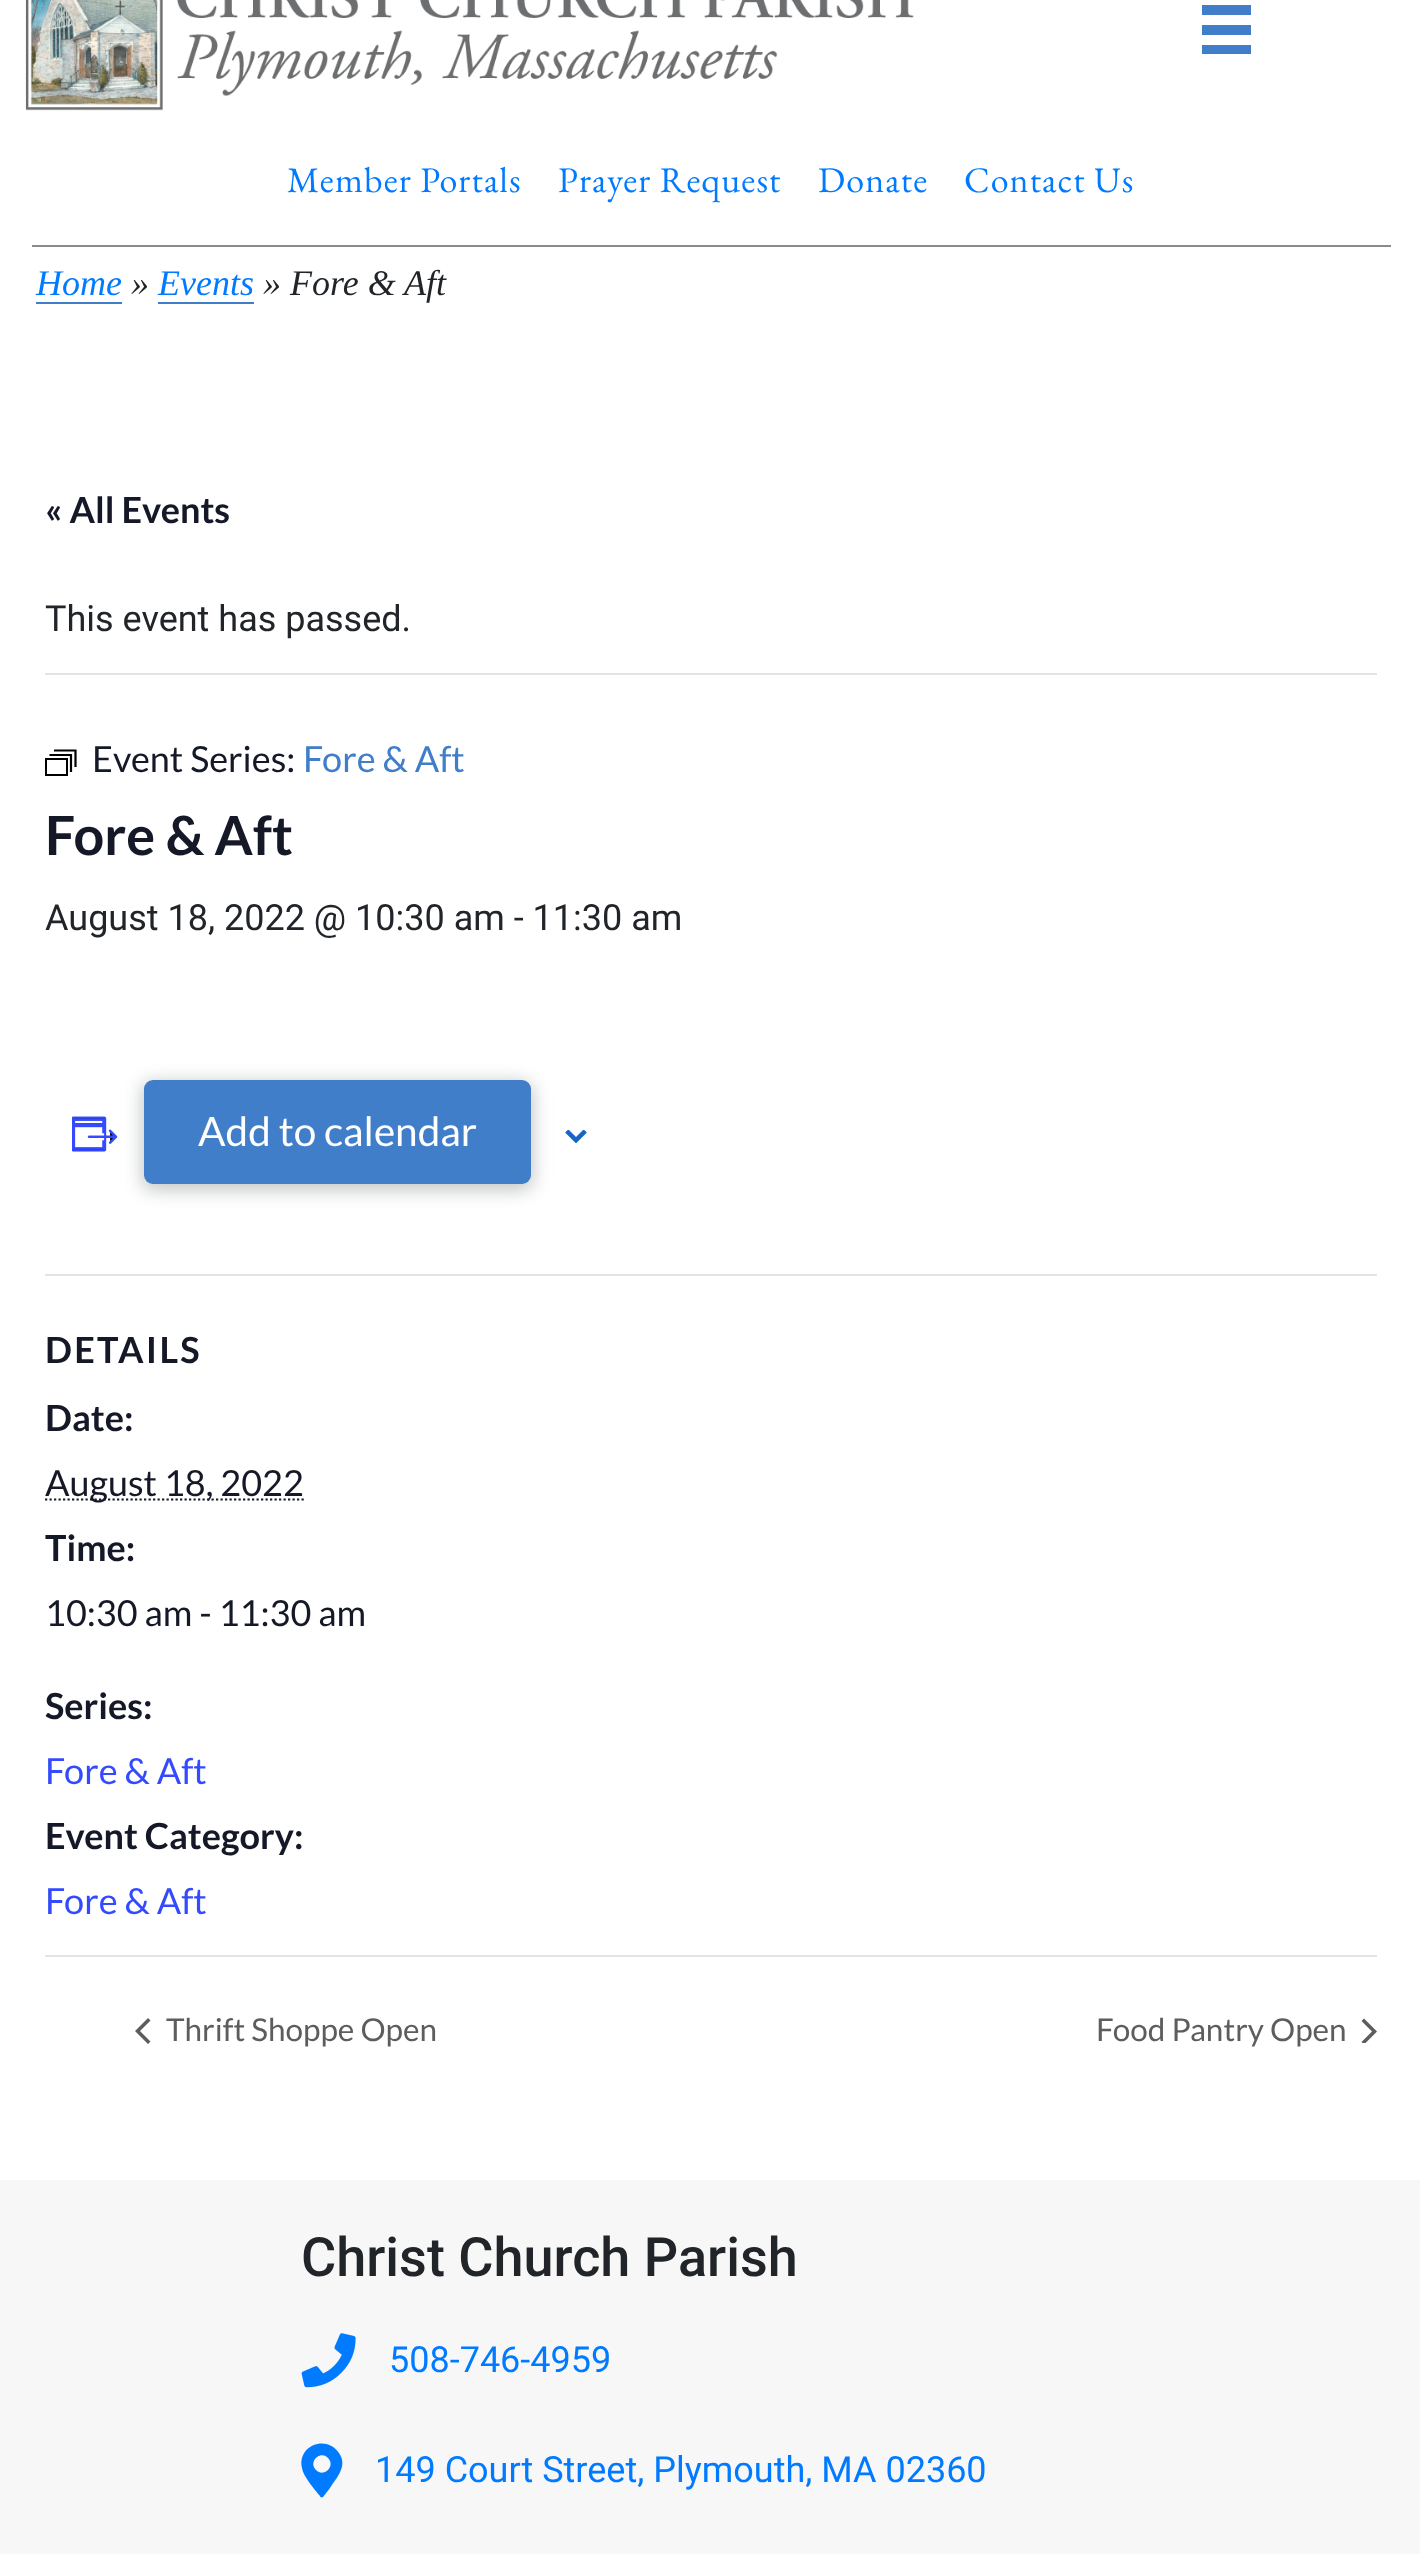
<svg xmlns="http://www.w3.org/2000/svg" width="1420" height="2554" viewBox="0 0 1420 2554">
  <defs>
    <clipPath id="clip1"><rect x="1361" y="2018" width="16" height="25"/></clipPath>
  </defs>
  <rect width="100%" height="100%" fill="rgb(255,255,255)"/>
  <image x="25" y="0" width="889" height="111" href="pic1.png"/>
  <rect x="1202" y="5" width="49" height="10" fill="rgb(64,126,201)"/>
  <rect x="1202" y="25" width="49" height="10" fill="rgb(64,126,201)"/>
  <rect x="1202" y="45" width="49" height="9" fill="rgb(64,126,201)"/>
  <g font-family="EB Garamond" font-size="36" letter-spacing="1.1" fill="rgb(0,123,255)">
    <text x="287" y="192">Member Portals</text>
    <text x="558" y="192">Prayer Request</text>
    <text x="818" y="192">Donate</text>
    <text x="964" y="192">Contact Us</text>
  </g>
  <rect x="32" y="245" width="1359" height="2" fill="rgb(136,139,141)"/>
  <text x="36" y="295" font-family="Liberation Serif" font-size="36" font-style="italic" fill="rgb(0,123,255)">Home</text>
  <rect x="36" y="302" width="86" height="2" fill="rgb(64,126,201)"/>
  <text x="131" y="295" font-family="Liberation Serif" font-size="36" font-style="italic" fill="rgb(33,37,41)">»</text>
  <text x="158" y="295" font-family="Liberation Serif" font-size="36" font-style="italic" fill="rgb(0,123,255)">Events</text>
  <rect x="158" y="302" width="96" height="2" fill="rgb(64,126,201)"/>
  <text x="263" y="295" font-family="Liberation Serif" font-size="36" font-style="italic" fill="rgb(33,37,41)">» Fore &amp; Aft</text>
  <text x="45" y="523" font-family="Lato" font-size="36" font-weight="bold" fill="rgb(20,24,39)">« All Events</text>
  <rect x="45" y="673" width="1332" height="2" fill="rgb(228,228,228)"/>
  <text x="45" y="631" font-family="Roboto" font-size="36" fill="rgb(33,37,41)">This event has passed.</text>
  <rect x="46" y="759" width="21" height="16" fill="none" stroke="rgb(0,0,0)" stroke-width="2"/>
  <path d="M49.5 755H71V772M54 750.5H75.5V767" fill="none" stroke="rgb(0,0,0)" stroke-width="2.2"/>
  <text x="92" y="772" font-family="Lato" font-size="36" fill="rgb(20,24,39)">Event Series:</text>
  <text x="303" y="772" font-family="Lato" font-size="36" fill="rgb(64,126,201)">Fore &amp; Aft</text>
  <text x="45" y="855" font-family="Lato" font-size="54" font-weight="bold" fill="rgb(20,24,39)">Fore &amp; Aft</text>
  <text x="45" y="930" font-family="Roboto" font-size="36" fill="rgb(33,37,41)">August 18, 2022 @ 10:30 am - 11:30 am</text>
  <rect x="142" y="1082" width="391" height="108" rx="11" fill="rgba(136,139,141,0.5)" filter="blur(9px)"/>
  <image x="72" y="1116" width="46" height="36" href="pic2.png"/>
  <rect x="144" y="1080" width="387" height="104" rx="9" fill="rgb(64,126,201)"/>
  <text x="198" y="1146" font-family="Lato" font-size="40.5" fill="rgb(255,255,255)">Add to calendar</text>
  <image x="565" y="1130" width="22" height="13" href="pic3.png"/>
  <rect x="45" y="1274" width="1332" height="2" fill="rgb(228,228,228)"/>
  <text x="45" y="1363" font-family="Lato" font-size="36" font-weight="bold" letter-spacing="2.25" fill="rgb(20,24,39)">DETAILS</text>
  <text x="45" y="1431" font-family="Lato" font-size="36" font-weight="bold" fill="rgb(20,24,39)">Date:</text>
  <path d="M45 1499.5H304" fill="none" stroke="rgb(20,24,39)" stroke-width="2.2" stroke-dasharray="2.25 2.25"/>
  <text x="45" y="1496" font-family="Lato" font-size="36" fill="rgb(20,24,39)">August 18, 2022</text>
  <text x="45" y="1561" font-family="Lato" font-size="36" font-weight="bold" fill="rgb(20,24,39)">Time:</text>
  <text x="45" y="1626" font-family="Lato" font-size="36" fill="rgb(20,24,39)">10:30 am - 11:30 am</text>
  <text x="45" y="1719" font-family="Lato" font-size="36" font-weight="bold" fill="rgb(20,24,39)">Series:</text>
  <text x="45" y="1784" font-family="Lato" font-size="36" fill="rgb(51,74,255)">Fore &amp; Aft</text>
  <text x="45" y="1849" font-family="Lato" font-size="36" font-weight="bold" fill="rgb(20,24,39)">Event Category:</text>
  <text x="45" y="1914" font-family="Lato" font-size="36" fill="rgb(51,74,255)">Fore &amp; Aft</text>
  <rect x="45" y="1955" width="1332" height="2" fill="rgb(228,228,228)"/>
  <path d="M150.5 2041.5L148 2044L135 2031L148 2018L150.5 2020.5L140 2031Z" fill="rgb(93,93,93)"/>
  <g font-family="Lato" font-size="31.5" fill="rgb(93,93,93)">
    <text x="166" y="2041">Thrift Shoppe Open</text>
    <text x="1096" y="2041">Food Pantry Open</text>
  </g>
  <g clip-path="url(#clip1)">
    <path d="M1361.5 2021L1364 2018.5L1377 2031.5L1364 2044.5L1361.5 2042L1372 2031.5Z" fill="rgb(93,93,93)"/>
  </g>
  <rect x="0" y="2180" width="1420" height="374" fill="rgb(247,247,247)"/>
  <text x="301" y="2276" font-family="Roboto" font-size="54" font-weight="500" fill="rgb(33,37,41)">Christ Church Parish</text>
  <image x="301" y="2333" width="55" height="55" href="pic4.png"/>
  <text x="389" y="2372" font-family="Roboto" font-size="36" fill="rgb(0,123,255)">508-746-4959</text>
  <path d="M320 2496C315 2490 303 2476 302 2468C297 2446 326 2434 339 2453C348 2466 337 2477 330 2488L323 2497C322 2498 320 2497 320 2496ZM316 2470C324 2478 336 2466 328 2458C320 2450 308 2462 316 2470Z" fill="rgb(0,123,255)"/>
  <text x="375" y="2482" font-family="Roboto" font-size="36" fill="rgb(0,123,255)">149 Court Street, Plymouth, MA 02360</text>
</svg>
